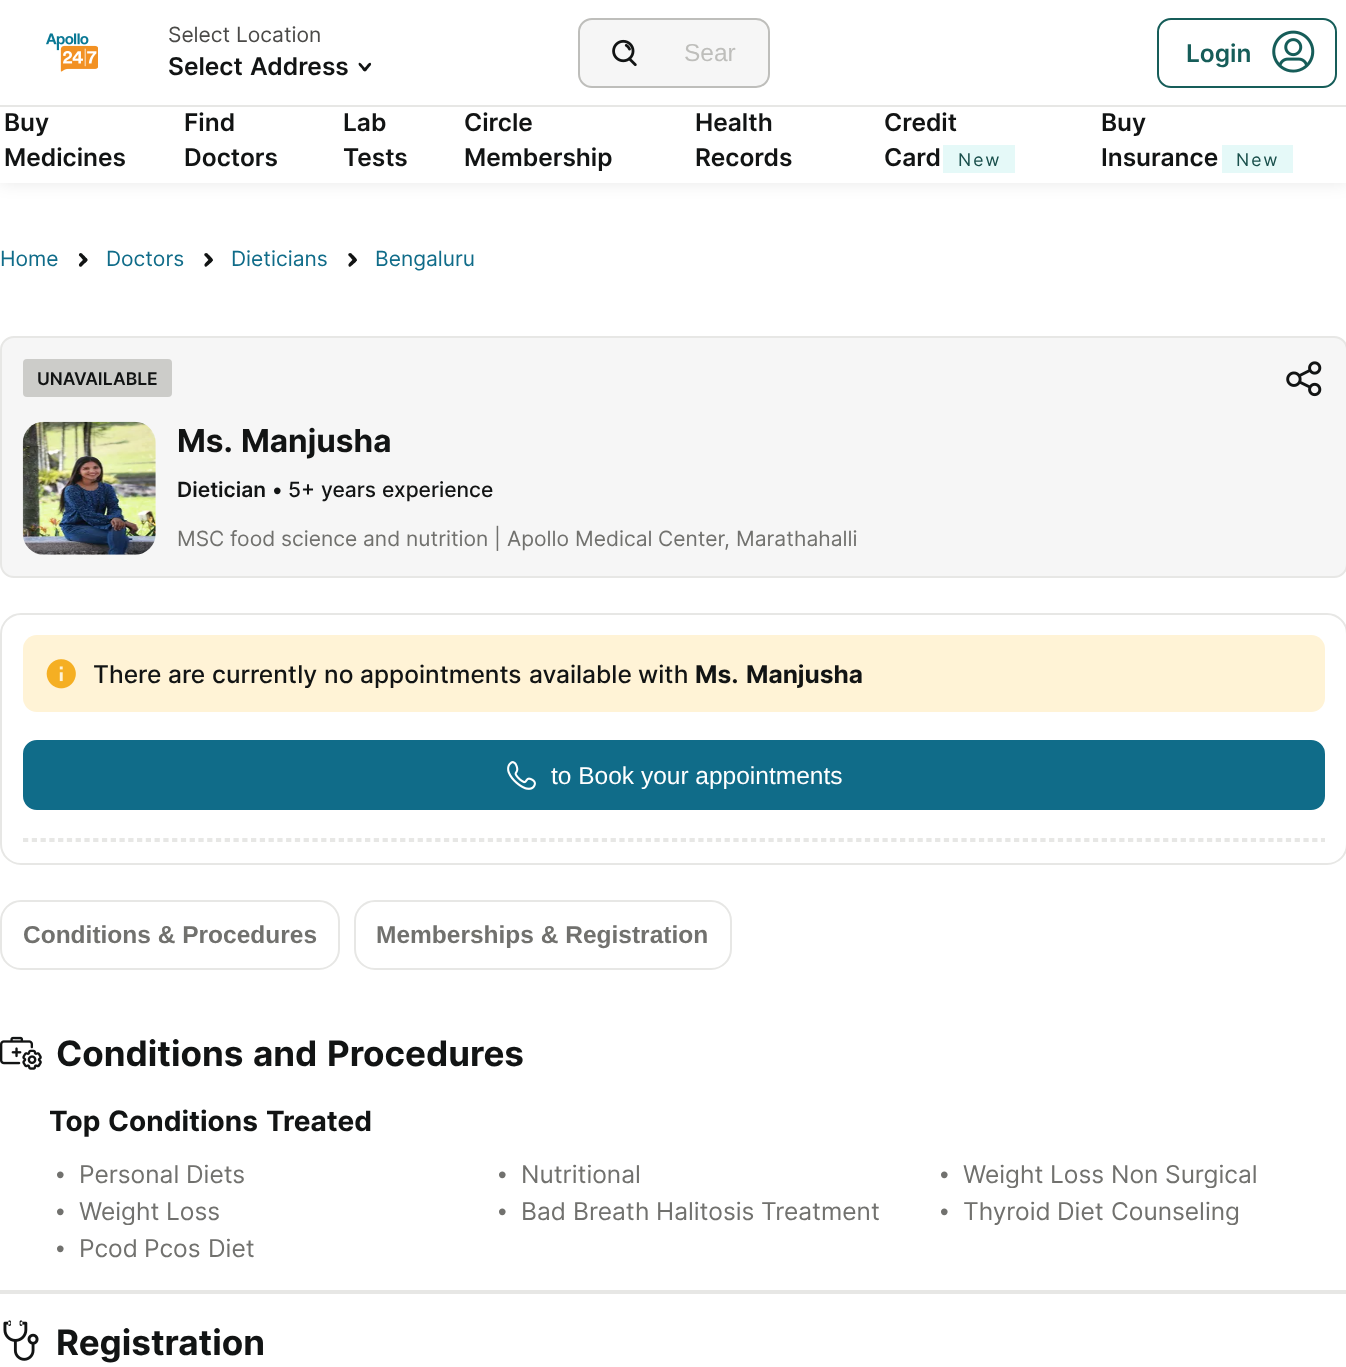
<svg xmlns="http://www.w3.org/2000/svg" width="1346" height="1367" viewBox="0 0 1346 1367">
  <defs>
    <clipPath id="clip1"><rect x="963" y="1159" width="295" height="29"/></clipPath>
    <clipPath id="clip2"><rect x="79" y="1195" width="142" height="30"/></clipPath>
    <clipPath id="clip3"><rect x="963" y="1195" width="276" height="30"/></clipPath>
  </defs>
  <rect width="100%" height="100%" fill="rgb(255,255,255)"/>
  <rect x="0" y="4" width="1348" height="178" fill="rgba(0,0,0,0.1)" filter="blur(9px)"/>
  <rect x="0" y="0" width="1346" height="179" fill="rgb(255,255,255)"/>
  <image x="46" y="33" width="52" height="39" href="pic1.png"/>
  <g font-family="Inter" font-size="21" fill="rgb(75,74,72)">
    <text x="168" y="42">Select</text>
    <text x="236" y="42">Location</text>
  </g>
  <g font-family="Inter" font-size="24.5" font-weight="600" fill="rgb(18,20,20)">
    <text x="168" y="75">Select</text>
    <text x="250" y="75">Address</text>
  </g>
  <path d="M370.5 63C372.5 64.5 369 67 368.5 68C367.5 69 365.5 72.5 364 71C362.5 70 365.5 67 366 66.5C367 65.5 369 62 370.5 63Z" fill="rgb(18,20,20)"/>
  <path d="M366 71C364 72.5 362 69 361.5 68C360.5 67 357.5 64.5 359 63C360.5 62 362.5 65.5 363.5 66.5C364 67 367.5 70 366 71Z" fill="rgb(18,20,20)"/>
  <rect x="579" y="19" width="190" height="68" rx="13" fill="rgb(246,246,246)" stroke="rgb(190,190,187)" stroke-width="2"/>
  <image x="612" y="39" width="25" height="28" href="pic2.png"/>
  <text x="684" y="61" font-family="Liberation Sans" font-size="24.5" fill="rgb(190,190,187)">Sear</text>
  <rect x="1158" y="19" width="178" height="68" rx="13" fill="none" stroke="rgb(22,93,89)" stroke-width="2"/>
  <text x="1186" y="62" font-family="Inter" font-size="24.5" font-weight="600" fill="rgb(22,93,89)">Login</text>
  <image x="1272" y="30" width="43" height="43" href="pic3.png"/>
  <rect x="0" y="105" width="1346" height="2" fill="rgb(231,231,229)"/>
  <rect x="0" y="179" width="1346" height="4" fill="rgb(255,255,255)"/>
  <g font-family="Inter" font-size="24.5" font-weight="600" fill="rgb(18,20,20)">
    <text>
      <tspan x="4" y="131">Buy</tspan>
      <tspan x="4" y="166">Medicines</tspan>
    </text>
    <text>
      <tspan x="184" y="131">Find</tspan>
      <tspan x="184" y="166">Doctors</tspan>
    </text>
    <text>
      <tspan x="343" y="131">Lab</tspan>
      <tspan x="343" y="166">Tests</tspan>
    </text>
    <text>
      <tspan x="464" y="131">Circle</tspan>
      <tspan x="464" y="166">Membership</tspan>
    </text>
    <text>
      <tspan x="695" y="131">Health</tspan>
      <tspan x="695" y="166">Records</tspan>
    </text>
    <text>
      <tspan x="884" y="131">Credit</tspan>
      <tspan x="884" y="166">Card</tspan>
    </text>
  </g>
  <rect x="943" y="145" width="72" height="28" fill="rgb(229,249,248)"/>
  <text x="958" y="166" font-family="Inter" font-size="17.5" letter-spacing="2" fill="rgb(26,80,76)">New</text>
  <g font-family="Inter" font-size="24.5" font-weight="600" fill="rgb(18,20,20)">
    <text>
      <tspan x="1101" y="131">Buy</tspan>
      <tspan x="1101" y="166">Insurance</tspan>
    </text>
  </g>
  <rect x="1222" y="145" width="71" height="28" fill="rgb(229,249,248)"/>
  <text x="1236" y="166" font-family="Inter" font-size="17.5" letter-spacing="2" fill="rgb(26,80,76)">New</text>
  <text x="0" y="266" font-family="Inter" font-size="21" fill="rgb(16,108,137)">Home</text>
  <path d="M82 253.5C82.5 254.5 90.5 260.5 86 261.5C84 262 82 258.5 81 257.5L79 255.5C78.5 253.5 80.5 252 82 253.5Z" fill="rgb(18,20,20)"/>
  <path d="M79.5 263.5C80 263 86.5 255 87.5 259.5C87.5 261.5 84.5 263.5 83.5 264.5L81.5 266.5C79.5 267.5 78 265 79.5 263.5Z" fill="rgb(18,20,20)"/>
  <text x="106" y="266" font-family="Inter" font-size="21" fill="rgb(16,108,137)">Doctors</text>
  <path d="M207.5 253.5C208 254.5 216 260.5 211.5 261.5C209.5 262 207.5 258.5 206.5 257.5L204.5 255.5C203.5 253.5 206 252 207.5 253.5Z" fill="rgb(18,20,20)"/>
  <path d="M205 263.5C205.5 263 212 255 212.5 259.5C213 261.5 210 263.5 209 264.5L206.5 266.5C205 267.5 203.5 265 205 263.5Z" fill="rgb(18,20,20)"/>
  <text x="231" y="266" font-family="Inter" font-size="21" fill="rgb(16,108,137)">Dieticians</text>
  <path d="M351.5 253.5C352 254.5 360 260.5 355.5 261.5C353.5 262 351.5 258.5 350.5 257.5L348.5 255.5C347.5 253.5 350 252 351.5 253.5Z" fill="rgb(18,20,20)"/>
  <path d="M349 263.5C349.5 263 356 255 356.5 259.5C357 261.5 354 263.5 353 264.5L350.5 266.5C349 267.5 347.5 265 349 263.5Z" fill="rgb(18,20,20)"/>
  <text x="375" y="266" font-family="Inter" font-size="21" fill="rgb(16,108,137)">Bengaluru</text>
  <rect x="1" y="337" width="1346" height="240" rx="13" fill="rgb(246,246,246)" stroke="rgb(231,231,229)" stroke-width="2"/>
  <rect x="23" y="359" width="149" height="38" rx="4" fill="rgb(204,204,201)"/>
  <text x="37" y="385" font-family="Inter" font-size="17.5" font-weight="600" fill="rgb(18,20,20)">UNAVAILABLE</text>
  <image x="1286" y="361" width="36" height="36" href="pic4.png"/>
  <image x="22" y="421" width="134" height="134" href="pic5.png"/>
  <g font-family="Inter" font-size="31.5" font-weight="bold" fill="rgb(18,20,20)">
    <text x="177" y="452">Ms.</text>
    <text x="241" y="452">Manjusha</text>
  </g>
  <text x="177" y="497" font-family="Inter" font-size="21" font-weight="600" fill="rgb(18,20,20)">Dietician</text>
  <text x="273" y="499" font-family="Liberation Sans" font-size="24.5" fill="rgb(18,20,20)">•</text>
  <g font-family="Inter" font-size="21" font-weight="500" fill="rgb(18,20,20)">
    <text x="288" y="497">5+</text>
    <text x="321" y="497">years</text>
    <text x="382" y="497">experience</text>
  </g>
  <g font-family="Inter" font-size="21" fill="rgb(113,113,110)">
    <text x="177" y="546">MSC</text>
    <text x="230" y="546">food</text>
    <text x="281" y="546">science</text>
    <text x="363" y="546">and</text>
    <text x="406" y="546">nutrition</text>
    <text x="494" y="546">|</text>
    <text x="507" y="546">Apollo</text>
    <text x="575" y="546">Medical</text>
    <text x="658" y="546">Center,</text>
    <text x="736" y="546">Marathahalli</text>
  </g>
  <rect x="1" y="614" width="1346" height="250" rx="20" fill="none" stroke="rgb(231,231,229)" stroke-width="2"/>
  <rect x="23" y="635" width="1302" height="77" rx="14" fill="rgb(255,243,214)"/>
  <image x="46" y="659" width="30" height="30" href="pic6.png"/>
  <g font-family="Inter" font-size="24.5" font-weight="500" fill="rgb(18,20,20)">
    <text x="93" y="683">There</text>
    <text x="168" y="683">are</text>
    <text x="212" y="683">currently</text>
    <text x="324" y="683">no</text>
    <text x="360" y="683">appointments</text>
    <text x="529" y="683">available</text>
    <text x="638" y="683">with</text>
  </g>
  <g font-family="Inter" font-size="24.5" font-weight="bold" fill="rgb(18,20,20)">
    <text x="695" y="683">Ms.</text>
    <text x="746" y="683">Manjusha</text>
  </g>
  <rect x="24" y="741" width="1300" height="68" rx="13" fill="rgb(16,108,137)" stroke="rgb(16,108,137)" stroke-width="2"/>
  <image x="507" y="761" width="29" height="29" href="pic7.png"/>
  <text x="551" y="784" font-family="Liberation Sans" font-size="24.5" fill="rgb(255,255,255)">to Book your appointments</text>
  <path d="M23 839H1325" fill="none" stroke="rgb(231,231,229)" stroke-width="1.8" stroke-dasharray="5.25 3.52"/>
  <rect x="1323" y="838" width="2" height="4" fill="rgb(231,231,229)"/>
  <path d="M23 841H1325" fill="none" stroke="rgb(231,231,229)" stroke-width="1.8" stroke-dasharray="5.25 3.52"/>
  <rect x="1" y="901" width="338" height="68" rx="20" fill="none" stroke="rgb(231,231,229)" stroke-width="2"/>
  <text x="23" y="943" font-family="Liberation Sans" font-size="24.5" font-weight="bold" fill="rgb(113,113,110)">Conditions &amp; Procedures</text>
  <rect x="355" y="901" width="376" height="68" rx="20" fill="none" stroke="rgb(231,231,229)" stroke-width="2"/>
  <text x="376" y="943" font-family="Liberation Sans" font-size="24.5" font-weight="bold" fill="rgb(113,113,110)">Memberships &amp; Registration</text>
  <image x="0" y="1036" width="42" height="34" href="pic8.png"/>
  <g font-family="Inter" font-size="35" font-weight="bold" fill="rgb(18,20,20)">
    <text x="56" y="1066">Conditions</text>
    <text x="253" y="1066">and</text>
    <text x="327" y="1066">Procedures</text>
  </g>
  <g font-family="Inter" font-size="28" font-weight="bold" fill="rgb(18,20,20)">
    <text x="49" y="1131">Top</text>
    <text x="108" y="1131">Conditions</text>
    <text x="266" y="1131">Treated</text>
  </g>
  <text x="56" y="1183" font-family="Liberation Sans" font-size="24.5" fill="rgb(113,113,110)">•</text>
  <g font-family="Inter" font-size="24.5" fill="rgb(113,113,110)">
    <text x="79" y="1183">Personal</text>
    <text x="186" y="1183">Diets</text>
  </g>
  <text x="498" y="1183" font-family="Liberation Sans" font-size="24.5" fill="rgb(113,113,110)">•</text>
  <text x="521" y="1183" font-family="Inter" font-size="24.5" fill="rgb(113,113,110)">Nutritional</text>
  <text x="940" y="1183" font-family="Liberation Sans" font-size="24.5" fill="rgb(113,113,110)">•</text>
  <g clip-path="url(#clip1)">
    <text x="963" y="1183" font-family="Inter" font-size="24.5" fill="rgb(113,113,110)">Weight</text>
  </g>
  <g font-family="Inter" font-size="24.5" fill="rgb(113,113,110)">
    <text x="1050" y="1183">Loss</text>
    <text x="1111" y="1183">Non</text>
  </g>
  <g clip-path="url(#clip1)">
    <text x="1165" y="1183" font-family="Inter" font-size="24.5" fill="rgb(113,113,110)">Surgical</text>
  </g>
  <text x="56" y="1220" font-family="Liberation Sans" font-size="24.5" fill="rgb(113,113,110)">•</text>
  <g clip-path="url(#clip2)">
    <text x="79" y="1220" font-family="Inter" font-size="24.5" fill="rgb(113,113,110)">Weight</text>
  </g>
  <text x="166" y="1220" font-family="Inter" font-size="24.5" fill="rgb(113,113,110)">Loss</text>
  <text x="498" y="1220" font-family="Liberation Sans" font-size="24.5" fill="rgb(113,113,110)">•</text>
  <g font-family="Inter" font-size="24.5" fill="rgb(113,113,110)">
    <text x="521" y="1220">Bad</text>
    <text x="573" y="1220">Breath</text>
    <text x="656" y="1220">Halitosis</text>
    <text x="761" y="1220">Treatment</text>
  </g>
  <text x="940" y="1220" font-family="Liberation Sans" font-size="24.5" fill="rgb(113,113,110)">•</text>
  <g font-family="Inter" font-size="24.5" fill="rgb(113,113,110)">
    <text x="963" y="1220">Thyroid</text>
    <text x="1057" y="1220">Diet</text>
  </g>
  <g clip-path="url(#clip3)">
    <text x="1111" y="1220" font-family="Inter" font-size="24.5" fill="rgb(113,113,110)">Counseling</text>
  </g>
  <text x="56" y="1257" font-family="Liberation Sans" font-size="24.5" fill="rgb(113,113,110)">•</text>
  <g font-family="Inter" font-size="24.5" fill="rgb(113,113,110)">
    <text x="79" y="1257">Pcod</text>
    <text x="144" y="1257">Pcos</text>
    <text x="208" y="1257">Diet</text>
  </g>
  <rect x="0" y="1290" width="1346" height="4" fill="rgb(231,231,229)"/>
  <image x="3" y="1320" width="36" height="41" href="pic9.png"/>
  <text x="56" y="1355" font-family="Inter" font-size="35" font-weight="bold" fill="rgb(18,20,20)">Registration</text>
</svg>
